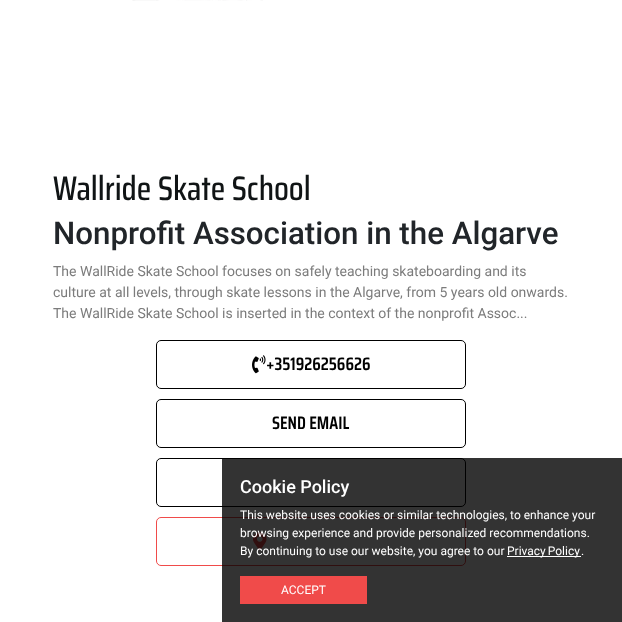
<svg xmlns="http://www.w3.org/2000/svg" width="622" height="622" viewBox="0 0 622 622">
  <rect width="100%" height="100%" fill="rgb(255,255,255)"/>
  <image x="132" y="0" width="131" height="1" href="pic1.png"/>
  <text x="53" y="200" font-family="Saira Condensed" font-size="34" font-weight="500" fill="rgb(16,20,21)">Wallride Skate School</text>
  <text x="53" y="244" font-family="Roboto" font-size="31.3" font-weight="500" fill="rgb(33,37,41)">Nonprofit Association in the Algarve</text>
  <g font-family="Roboto" font-size="14" fill="rgb(124,124,124)">
    <text>
      <tspan x="53" y="276">The WallRide Skate School focuses on safely teaching skateboarding and its</tspan>
      <tspan x="53" y="297">culture at all levels, through skate lessons in the Algarve, from 5 years old onwards.</tspan>
      <tspan x="53" y="318">The WallRide Skate School is inserted in the context of the nonprofit Assoc...</tspan>
    </text>
  </g>
  <rect x="156.5" y="340.5" width="309" height="48" rx="4.5" fill="none" stroke="rgb(0,0,0)"/>
  <image x="252" y="355" width="14" height="19" href="pic2.png"/>
  <text x="266" y="370" font-family="Saira Condensed" font-size="18" font-weight="600" fill="rgb(0,0,0)">+351926256626</text>
  <rect x="156.5" y="399.5" width="309" height="48" rx="4.5" fill="none" stroke="rgb(0,0,0)"/>
  <text x="272" y="429" font-family="Saira Condensed" font-size="18" font-weight="600" fill="rgb(0,0,0)">SEND EMAIL</text>
  <rect x="156.5" y="458.5" width="309" height="48" rx="4.5" fill="none" stroke="rgb(0,0,0)"/>
  <rect x="156.5" y="517.5" width="309" height="48" rx="4.5" fill="none" stroke="rgb(240,75,74)"/>
  <image x="253" y="532" width="14" height="19" href="pic3.png"/>
  <rect x="222" y="458" width="400" height="164" fill="rgba(0,0,0,0.8)"/>
  <text x="240" y="493" font-family="Roboto" font-size="18" font-weight="500" fill="rgb(255,255,255)">Cookie Policy</text>
  <g font-family="Roboto" font-size="12" fill="rgb(255,255,255)">
    <text>
      <tspan x="240" y="519">This website uses cookies or similar technologies, to enhance your</tspan>
      <tspan x="240" y="537">browsing experience and provide personalized recommendations.</tspan>
      <tspan x="240" y="555">By continuing to use our website, you agree to our</tspan>
    </text>
  </g>
  <rect x="507" y="556" width="74" height="1" fill="rgb(255,255,255)"/>
  <g font-family="Roboto" font-size="12" fill="rgb(255,255,255)">
    <text x="507" y="555" word-spacing="-1">Privacy Policy</text>
    <text x="581" y="555">.</text>
  </g>
  <rect x="240" y="576" width="127" height="28" fill="rgb(240,75,74)"/>
  <text x="281" y="594" font-family="Roboto" font-size="12" fill="rgb(255,255,255)">ACCEPT</text>
</svg>
